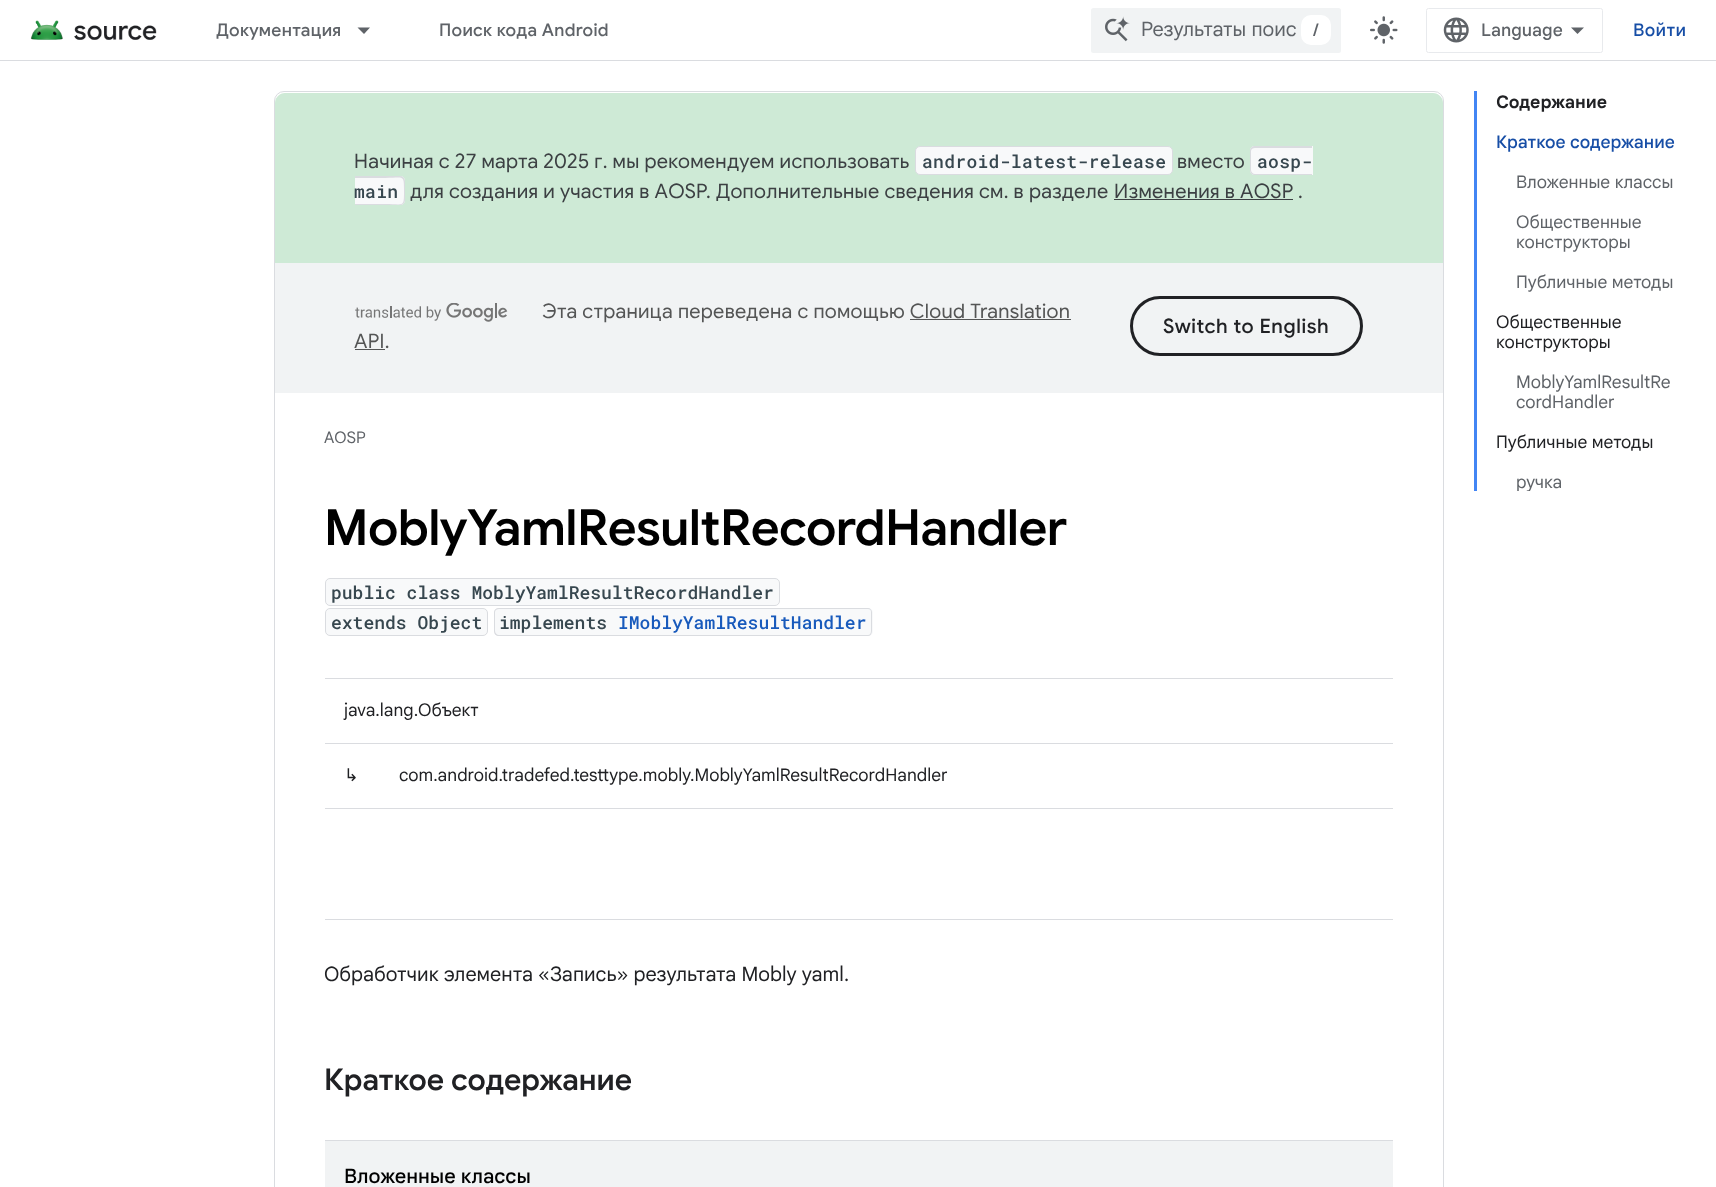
<svg xmlns="http://www.w3.org/2000/svg" width="1716" height="1187" viewBox="0 0 1716 1187">
  <defs>
    <clipPath id="clip1"><rect x="1516" y="91" width="47" height="400"/></clipPath>
  </defs>
  <rect width="100%" height="100%" fill="rgb(255,255,255)"/>
  <rect x="0" y="60" width="1716" height="1" fill="rgb(218,220,224)"/>
  <image x="30" y="20" width="127" height="20" href="pic1.png"/>
  <text x="216" y="36" font-family="Google Sans" font-size="17.5" font-weight="500" letter-spacing="0.3" fill="rgb(95,99,104)">Документация</text>
  <path d="M357.5 27.5H370L364 34Z" fill="rgb(95,99,104)"/>
  <text x="439" y="36" font-family="Google Sans" font-size="17.5" font-weight="500" letter-spacing="0.3" fill="rgb(95,99,104)">Поиск кода Android</text>
  <rect x="1091" y="8" width="250" height="45" rx="2.5" fill="rgb(241,243,244)"/>
  <image x="1105" y="16" width="25" height="26" href="pic2.png"/>
  <text x="1141" y="36" font-family="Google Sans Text" font-size="20" fill="rgb(95,99,104)">Результаты поис</text>
  <rect x="1301" y="15" width="30" height="30" rx="10" fill="rgb(255,255,255)"/>
  <text x="1313" y="36" font-family="Google Sans" font-size="17.5" font-weight="500" fill="rgb(95,99,104)">/</text>
  <image x="1370" y="16" width="28" height="28" href="pic3.png"/>
  <rect x="1426.5" y="8.5" width="176" height="44" rx="2" fill="none" stroke="rgb(232,234,237)"/>
  <image x="1443" y="17" width="26" height="26" href="pic4.png"/>
  <text x="1481" y="36" font-family="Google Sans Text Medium" font-size="17.5" font-weight="500" fill="rgb(95,99,104)">Language</text>
  <path d="M1577.5 34L1571 27.5H1584Z" fill="rgb(95,99,104)"/>
  <text x="1633" y="36" font-family="Google Sans Text Medium" font-size="17.5" font-weight="500" letter-spacing="0.3" fill="rgb(23,78,166)">Войти</text>
  <rect x="274.5" y="91.5" width="1169" height="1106" rx="9.5" fill="none" stroke="rgb(218,220,224)"/>
  <path d="M285 93H1433C1438.5 93 1443 97.5 1443 103V263H275V103C275 97.5 279.5 93 285 93Z" fill="rgb(206,234,214)"/>
  <text x="354" y="168" font-family="Google Sans" font-size="20" letter-spacing="0.3" fill="rgb(60,64,67)">Начиная с 27 марта 2025 г. мы рекомендуем использовать</text>
  <rect x="915.5" y="146.5" width="257" height="28" rx="4.5" fill="rgb(248,249,250)" stroke="rgb(218,220,224)"/>
  <text x="922" y="168" font-family="Roboto Mono" font-size="18" font-weight="500" letter-spacing="0.3" fill="rgb(55,71,79)">android-latest-release</text>
  <text x="1177" y="168" font-family="Google Sans" font-size="20" letter-spacing="0.3" fill="rgb(60,64,67)">вместо</text>
  <path d="M1255 146H1313V175H1255C1252 175 1250 173 1250 170V151C1250 148 1252 146 1255 146Z" fill="rgb(248,249,250)"/>
  <path d="M1255 146H1312V175H1255C1252 175 1250 173 1250 170V151C1250 148 1252 146 1255 146ZM1255 148H1312V174H1255C1253 174 1251 172 1251 170V151C1251 149 1253 148 1255 148Z" fill="rgb(218,220,224)" fill-rule="evenodd"/>
  <text x="1257" y="168" font-family="Roboto Mono" font-size="18" font-weight="500" letter-spacing="0.3" fill="rgb(55,71,79)">aosp-</text>
  <path d="M355 176H400C403 176 405 178 405 181V200C405 203 403 205 400 205H355Z" fill="rgb(248,249,250)"/>
  <path d="M355 176H400C403 176 405 178 405 181V200C405 203 403 205 400 205H355ZM355 178H385C404 178 404 174 404 191C404 208 404 204 385 204H355Z" fill="rgb(218,220,224)" fill-rule="evenodd"/>
  <text x="354" y="198" font-family="Roboto Mono" font-size="18" font-weight="500" letter-spacing="0.3" fill="rgb(55,71,79)">main</text>
  <g font-family="Google Sans" font-size="20" letter-spacing="0.3" fill="rgb(60,64,67)">
    <text x="410" y="198">для создания и участия в AOSP. Дополнительные сведения см. в разделе</text>
    <text x="1114" y="198">Изменения в AOSP</text>
  </g>
  <rect x="1114" y="199" width="179" height="1" fill="rgb(60,64,67)"/>
  <text x="1298" y="198" font-family="Google Sans" font-size="20" letter-spacing="0.3" fill="rgb(60,64,67)">.</text>
  <rect x="275" y="263" width="1168" height="130" fill="rgb(241,243,244)"/>
  <image x="355" y="303" width="153" height="19" href="pic5.png"/>
  <text x="542" y="318" font-family="Google Sans" font-size="20" letter-spacing="0.3" fill="rgb(84,85,85)">Эта страница переведена с помощью Cloud Translation</text>
  <rect x="910" y="319" width="161" height="1" fill="rgb(84,85,85)"/>
  <text x="354" y="348" font-family="Google Sans" font-size="20" letter-spacing="0.3" fill="rgb(84,85,85)">API.</text>
  <rect x="355" y="349" width="30" height="1" fill="rgb(84,85,85)"/>
  <rect x="1131.5" y="297.5" width="230" height="57" rx="28.5" fill="none" stroke="rgb(32,33,36)" stroke-width="3"/>
  <text x="1163" y="333" font-family="Google Sans" font-size="20" font-weight="500" letter-spacing="0.6" fill="rgb(32,33,36)">Switch to English</text>
  <text x="324" y="443" font-family="Google Sans Text" font-size="16" fill="rgb(95,99,104)">AOSP</text>
  <text x="324" y="545" font-family="Google Sans" font-size="50" font-weight="600" letter-spacing="-0.6" fill="rgb(0,0,0)">MoblyYamlResultRecordHandler</text>
  <rect x="325.5" y="578.5" width="454" height="27" rx="4.5" fill="rgb(248,249,250)" stroke="rgb(218,220,224)"/>
  <text x="331" y="599" font-family="Roboto Mono" font-size="18" font-weight="500" fill="rgb(55,71,79)">public class MoblyYamlResultRecordHandler</text>
  <rect x="325.5" y="608.5" width="162" height="27" rx="4.5" fill="rgb(248,249,250)" stroke="rgb(218,220,224)"/>
  <text x="331" y="629" font-family="Roboto Mono" font-size="18" font-weight="500" fill="rgb(55,71,79)">extends Object</text>
  <path d="M499 608H619V636H499C496 636 494 634 494 631V613C494 610 496 608 499 608Z" fill="rgb(248,249,250)"/>
  <path d="M499 608H619V636H499C496 636 494 634 494 631V612C494 610 496 608 499 608ZM499 609H619V635H499C497 635 495 633 495 631V612C495 610 497 609 499 609Z" fill="rgb(218,220,224)" fill-rule="evenodd"/>
  <text x="499" y="629" font-family="Roboto Mono" font-size="18" font-weight="500" fill="rgb(55,71,79)">implements</text>
  <path d="M619 608H868C871 608 873 610 873 613V631C873 634 871 636 868 636H619Z" fill="rgb(248,249,250)"/>
  <path d="M619 608H868C870 608 872 610 872 612V631C872 634 870 636 868 636H619ZM619 609H868C870 609 871 610 871 612V631C871 633 870 635 868 635H619Z" fill="rgb(218,220,224)" fill-rule="evenodd"/>
  <text x="618" y="629" font-family="Roboto Mono" font-size="18" font-weight="500" fill="rgb(24,90,188)">IMoblyYamlResultHandler</text>
  <rect x="325" y="678" width="1068" height="1" fill="rgb(218,220,224)"/>
  <rect x="325" y="743" width="1068" height="1" fill="rgb(218,220,224)"/>
  <text x="344" y="716" font-family="Google Sans Text" font-size="17.5" fill="rgb(32,33,36)">java.lang.Объект</text>
  <rect x="325" y="808" width="1068" height="1" fill="rgb(218,220,224)"/>
  <text x="344" y="781" font-family="DejaVu Sans" font-size="17.5" fill="rgb(32,33,36)">↳</text>
  <text x="399" y="781" font-family="Google Sans Text" font-size="17.5" fill="rgb(32,33,36)">com.android.tradefed.testtype.mobly.MoblyYamlResultRecordHandler</text>
  <rect x="325" y="919" width="1068" height="1" fill="rgb(218,220,224)"/>
  <text x="324" y="981" font-family="Google Sans Text" font-size="20" fill="rgb(32,33,36)">Обработчик элемента «Запись» результата Mobly yaml.</text>
  <text x="324" y="1090" font-family="Google Sans" font-size="30" font-weight="600" fill="rgb(32,33,36)">Краткое содержание</text>
  <rect x="325" y="1140" width="1068" height="1" fill="rgb(218,220,224)"/>
  <rect x="325" y="1141" width="1068" height="46" fill="rgb(241,243,244)"/>
  <text x="344" y="1183" font-family="Google Sans Text Medium" font-size="20" font-weight="500" fill="rgb(0,0,0)">Вложенные классы</text>
  <rect x="1474" y="91" width="3" height="400" fill="rgb(66,133,244)"/>
  <text x="1496" y="108" font-family="Google Sans Text" font-size="17.5" font-weight="bold" fill="rgb(32,33,36)">Содержание</text>
  <text x="1496" y="148" font-family="Google Sans Text Medium" font-size="17.5" font-weight="500" fill="rgb(23,78,166)">Краткое содержание</text>
  <g font-family="Google Sans Text" font-size="17.5" fill="rgb(95,99,104)">
    <text x="1516" y="188">Вложенные классы</text>
    <text>
      <tspan x="1516" y="228">Общественные</tspan>
      <tspan x="1516" y="248">конструкторы</tspan>
    </text>
    <text x="1516" y="288">Публичные методы</text>
  </g>
  <g font-family="Google Sans Text" font-size="17.5" fill="rgb(32,33,36)">
    <text>
      <tspan x="1496" y="328">Общественные</tspan>
      <tspan x="1496" y="348">конструкторы</tspan>
    </text>
  </g>
  <g font-family="Google Sans Text" font-size="17.5" fill="rgb(95,99,104)">
    <text>
      <tspan x="1516" y="388">MoblyYamlResultRe</tspan>
      <tspan x="1516" y="408">cordHandler</tspan>
    </text>
  </g>
  <text x="1496" y="448" font-family="Google Sans Text" font-size="17.5" fill="rgb(32,33,36)">Публичные методы</text>
  <g clip-path="url(#clip1)">
    <text x="1516" y="488" font-family="Google Sans Text" font-size="17.5" fill="rgb(95,99,104)">ручка</text>
  </g>
</svg>
